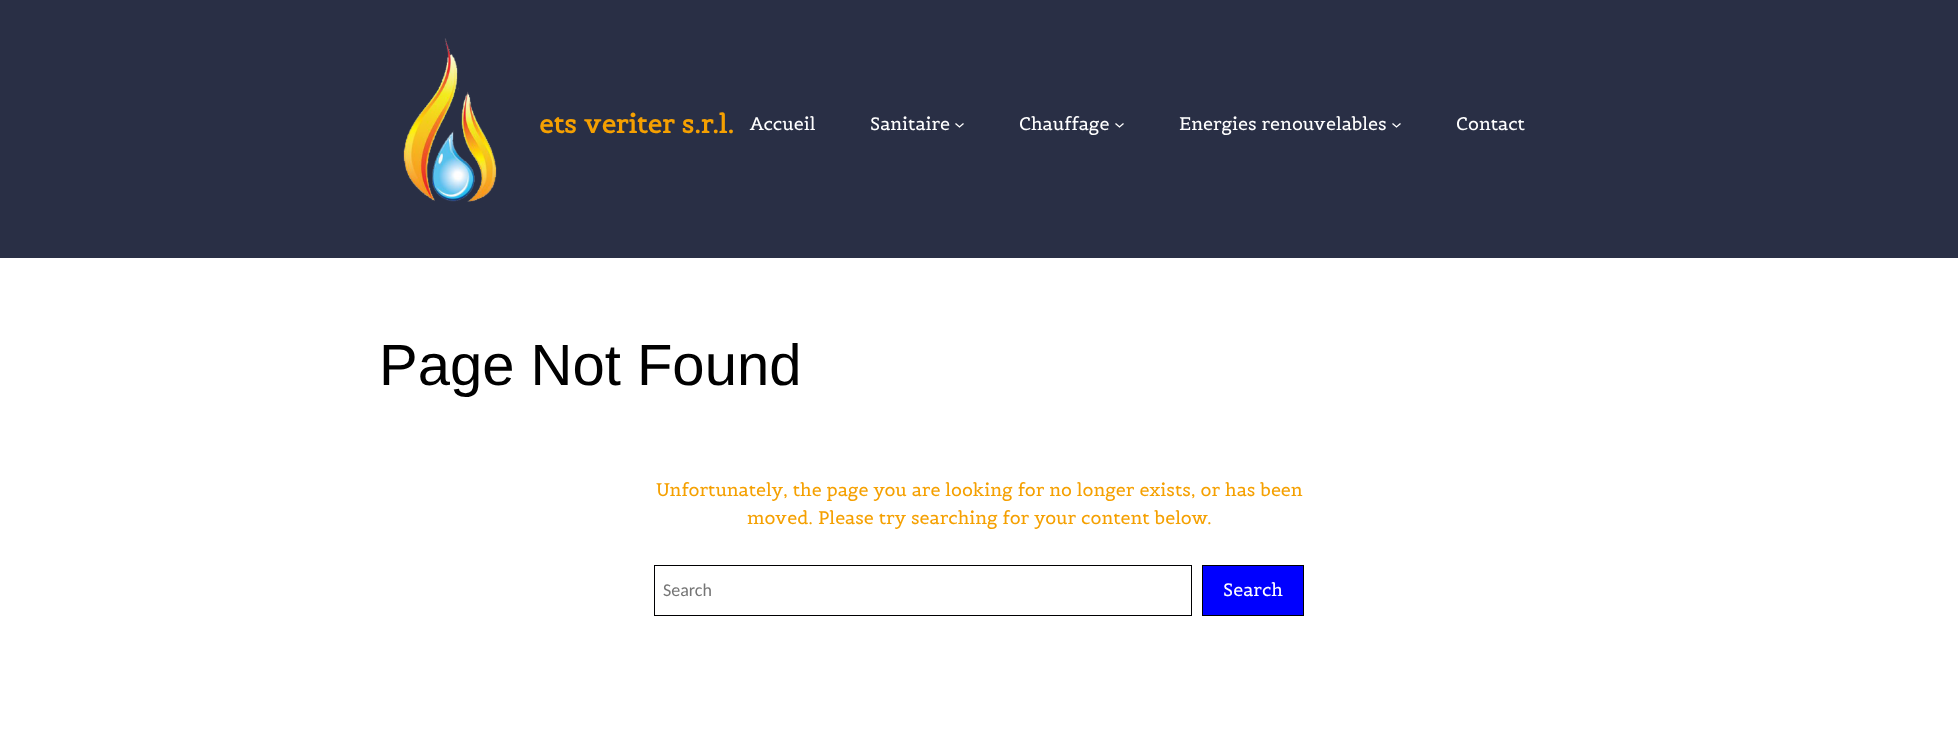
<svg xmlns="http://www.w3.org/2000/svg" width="1958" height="749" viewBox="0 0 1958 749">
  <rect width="100%" height="100%" fill="rgb(255,255,255)"/>
  <rect x="0" y="0" width="1958" height="258" fill="rgb(41,47,69)"/>
  <image x="403" y="38" width="94" height="164" href="pic1.png"/>
  <text x="539" y="133" font-family="Belgrano" font-size="26" font-weight="bold" fill="rgb(245,160,1)">ets veriter s.r.l.</text>
  <g font-family="Belgrano" font-size="18" fill="rgb(255,255,255)">
    <text x="750" y="130">Accueil</text>
    <text x="870" y="130">Sanitaire</text>
  </g>
  <path d="M955.5 123.5L959.5 127L963.5 123.5" fill="none" stroke="rgb(255,255,255)" stroke-width="1.3"/>
  <text x="1019" y="130" font-family="Belgrano" font-size="18" fill="rgb(255,255,255)">Chauffage</text>
  <path d="M1115.5 123.5L1119.5 127L1123.5 123.5" fill="none" stroke="rgb(255,255,255)" stroke-width="1.3"/>
  <text x="1179" y="130" font-family="Belgrano" font-size="18" fill="rgb(255,255,255)">Energies renouvelables</text>
  <path d="M1392.5 123.5L1396.5 127L1400.5 123.5" fill="none" stroke="rgb(255,255,255)" stroke-width="1.3"/>
  <text x="1456" y="130" font-family="Belgrano" font-size="18" fill="rgb(255,255,255)">Contact</text>
  <text x="379" y="385" font-family="Liberation Sans" font-size="58" fill="rgb(0,0,0)">Page Not Found</text>
  <g font-family="Belgrano" font-size="18" fill="rgb(245,160,1)">
    <text x="656" y="496">Unfortunately, the page you are looking for no longer exists, or has been</text>
    <text x="747" y="524">moved. Please try searching for your content below.</text>
  </g>
  <rect x="654.5" y="565.5" width="537" height="50" fill="none" stroke="rgb(0,0,1)"/>
  <text x="663" y="596" font-family="Carlito" font-size="18" fill="rgb(117,117,117)">Search</text>
  <rect x="1202.5" y="565.5" width="101" height="50" fill="rgb(0,0,255)" stroke="rgb(0,0,1)"/>
  <text x="1223" y="596" font-family="Belgrano" font-size="18" fill="rgb(255,255,255)">Search</text>
</svg>
